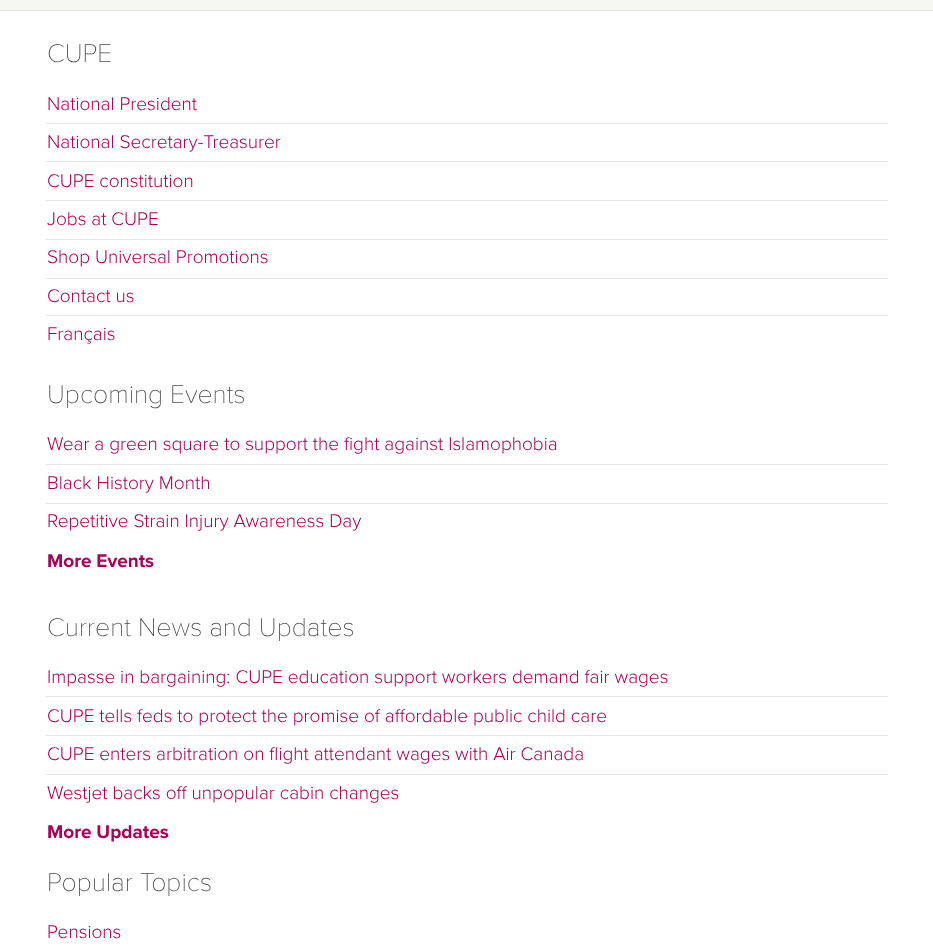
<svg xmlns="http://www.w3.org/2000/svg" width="933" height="948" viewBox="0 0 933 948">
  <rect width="100%" height="100%" fill="rgb(246,247,240)"/>
  <rect x="0" y="11" width="933" height="937" fill="rgb(255,255,255)"/>
  <rect x="0" y="10" width="933" height="1" fill="rgb(230,230,230)"/>
  <text x="47" y="62" font-family="Proxima Nova" font-size="26.6" font-weight="100" fill="rgb(74,74,74)">CUPE</text>
  <rect x="46" y="123" width="842" height="1" fill="rgb(230,230,230)"/>
  <text x="47" y="110" font-family="Proxima Nova" font-size="19" font-weight="300" fill="rgb(170,0,86)">National President</text>
  <rect x="46" y="161" width="842" height="1" fill="rgb(230,230,230)"/>
  <text x="47" y="148" font-family="Proxima Nova" font-size="19" font-weight="300" fill="rgb(170,0,86)">National Secretary-Treasurer</text>
  <rect x="46" y="200" width="842" height="1" fill="rgb(230,230,230)"/>
  <text x="47" y="187" font-family="Proxima Nova" font-size="19" font-weight="300" fill="rgb(170,0,86)">CUPE constitution</text>
  <rect x="46" y="239" width="842" height="1" fill="rgb(230,230,230)"/>
  <text x="47" y="225" font-family="Proxima Nova" font-size="19" font-weight="300" fill="rgb(170,0,86)">Jobs at CUPE</text>
  <rect x="46" y="278" width="842" height="1" fill="rgb(230,230,230)"/>
  <text x="47" y="263" font-family="Proxima Nova" font-size="19" font-weight="300" fill="rgb(170,0,86)">Shop Universal Promotions</text>
  <rect x="46" y="315" width="842" height="1" fill="rgb(230,230,230)"/>
  <g font-family="Proxima Nova" font-size="19" font-weight="300" fill="rgb(170,0,86)">
    <text x="47" y="302">Contact us</text>
    <text x="47" y="340">Français</text>
  </g>
  <text x="47" y="403" font-family="Proxima Nova" font-size="26.6" font-weight="100" fill="rgb(74,74,74)">Upcoming Events</text>
  <rect x="46" y="464" width="842" height="1" fill="rgb(230,230,230)"/>
  <text x="47" y="450" font-family="Proxima Nova" font-size="19" font-weight="300" fill="rgb(170,0,86)">Wear a green square to support the fight against Islamophobia</text>
  <rect x="46" y="503" width="842" height="1" fill="rgb(230,230,230)"/>
  <g font-family="Proxima Nova" font-size="19" font-weight="300" fill="rgb(170,0,86)">
    <text x="47" y="489">Black History Month</text>
    <text x="47" y="527">Repetitive Strain Injury Awareness Day</text>
  </g>
  <text x="47" y="567" font-family="Proxima Nova" font-size="19" font-weight="bold" fill="rgb(170,0,86)">More Events</text>
  <text x="47" y="636" font-family="Proxima Nova" font-size="26.6" font-weight="100" fill="rgb(74,74,74)">Current News and Updates</text>
  <rect x="46" y="696" width="842" height="1" fill="rgb(230,230,230)"/>
  <text x="47" y="683" font-family="Proxima Nova" font-size="19" font-weight="300" fill="rgb(170,0,86)">Impasse in bargaining: CUPE education support workers demand fair wages</text>
  <rect x="46" y="735" width="842" height="1" fill="rgb(230,230,230)"/>
  <text x="47" y="722" font-family="Proxima Nova" font-size="19" font-weight="300" fill="rgb(170,0,86)">CUPE tells feds to protect the promise of affordable public child care</text>
  <rect x="46" y="774" width="842" height="1" fill="rgb(230,230,230)"/>
  <g font-family="Proxima Nova" font-size="19" font-weight="300" fill="rgb(170,0,86)">
    <text x="47" y="760">CUPE enters arbitration on flight attendant wages with Air Canada</text>
    <text x="47" y="799">Westjet backs off unpopular cabin changes</text>
  </g>
  <text x="47" y="838" font-family="Proxima Nova" font-size="19" font-weight="bold" fill="rgb(170,0,86)">More Updates</text>
  <text x="47" y="891" font-family="Proxima Nova" font-size="26.6" font-weight="100" fill="rgb(74,74,74)">Popular Topics</text>
  <text x="47" y="938" font-family="Proxima Nova" font-size="19" font-weight="300" fill="rgb(170,0,86)">Pensions</text>
</svg>
